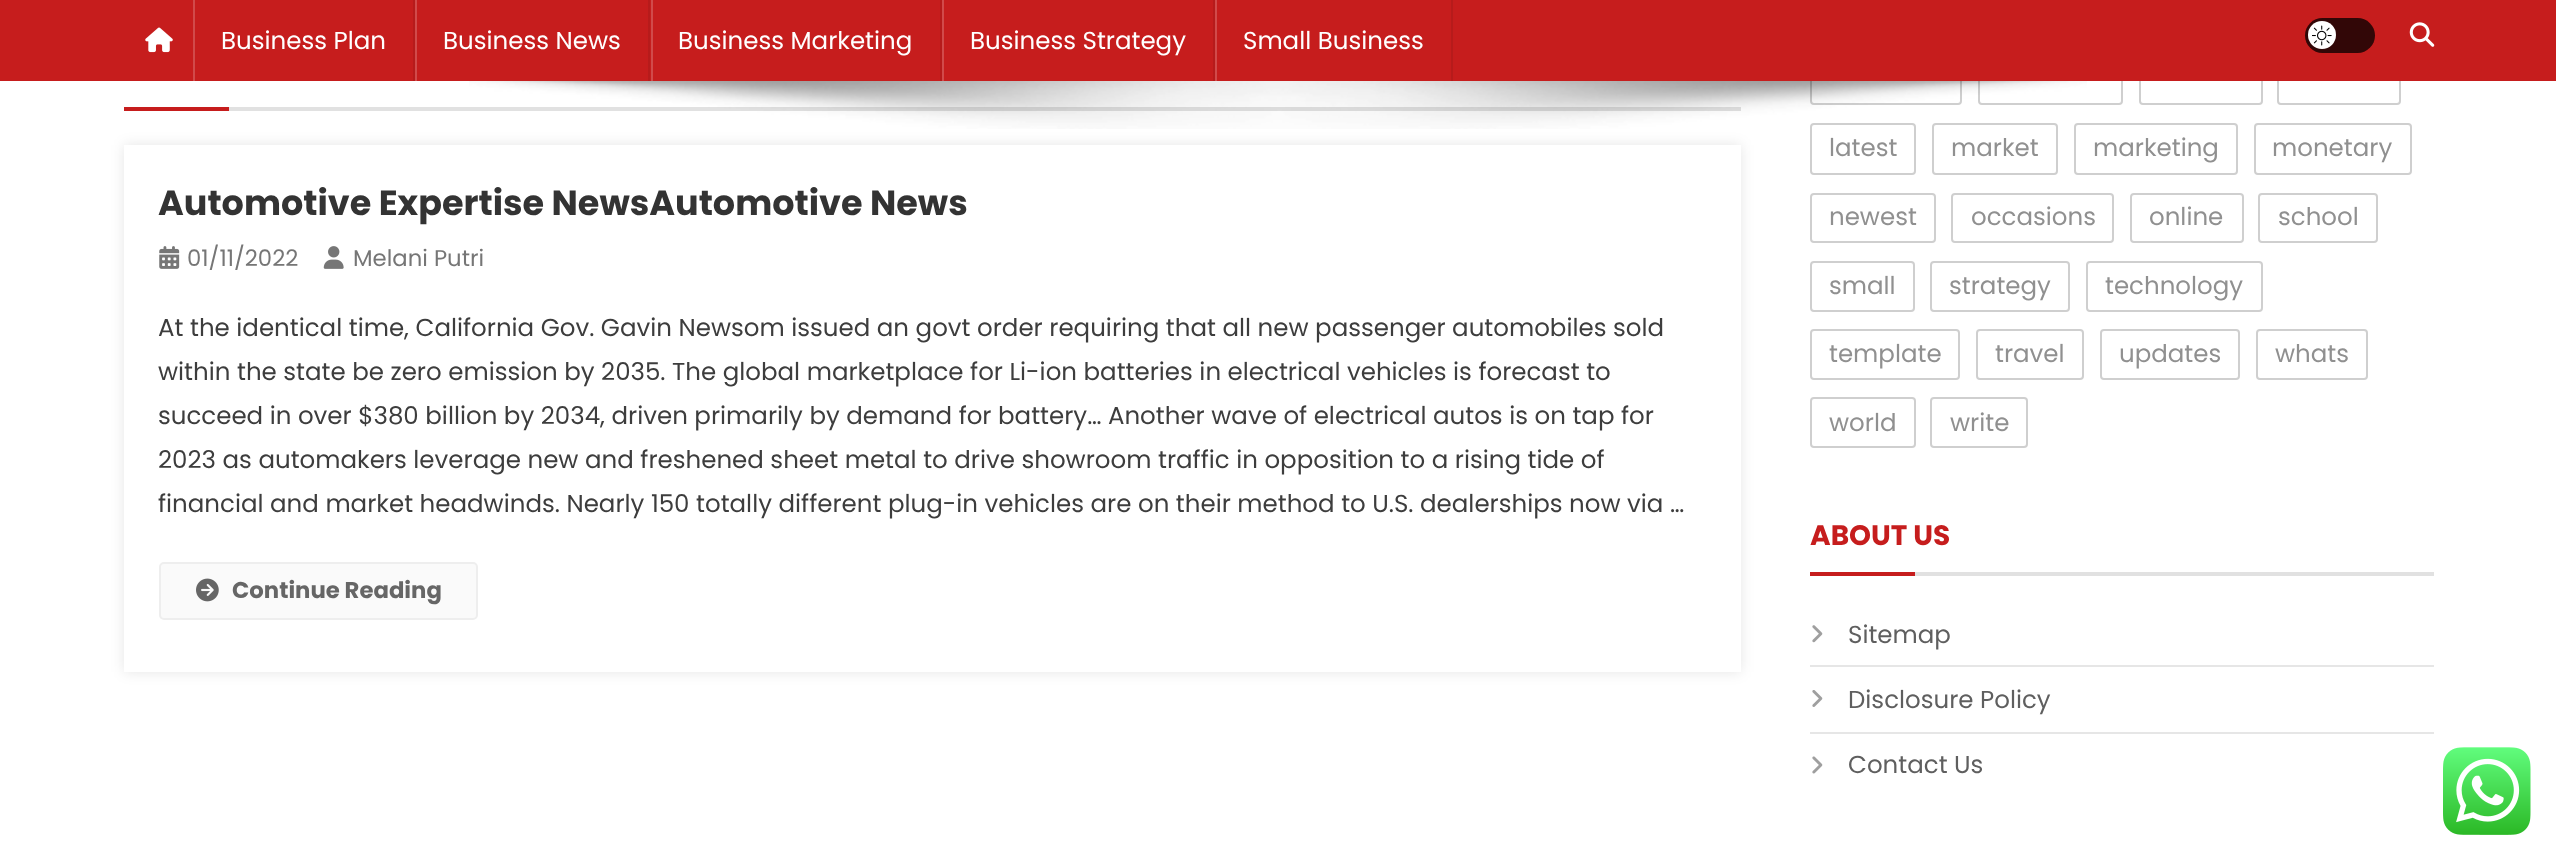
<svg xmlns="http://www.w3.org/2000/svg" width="2556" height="861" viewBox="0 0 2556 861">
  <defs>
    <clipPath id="clip1"><path d="M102 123H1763V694H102ZM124 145H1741V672H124Z" clip-rule="evenodd"/></clipPath>
  </defs>
  <rect width="100%" height="100%" fill="rgb(255,255,255)"/>
  <rect x="1811" y="55" width="150" height="49" rx="3" fill="none" stroke="rgb(207,207,207)" stroke-width="2"/>
  <rect x="1979" y="55" width="143" height="49" rx="3" fill="none" stroke="rgb(207,207,207)" stroke-width="2"/>
  <rect x="2140" y="55" width="122" height="49" rx="3" fill="none" stroke="rgb(207,207,207)" stroke-width="2"/>
  <rect x="2278" y="55" width="122" height="49" rx="3" fill="none" stroke="rgb(207,207,207)" stroke-width="2"/>
  <rect x="0" y="0" width="2556" height="81" fill="rgb(198,29,29)"/>
  <image x="145" y="27" width="28" height="26" href="pic1.png"/>
  <rect x="413" y="0" width="2" height="81" fill="rgb(182,27,27)"/>
  <rect x="193" y="0" width="2" height="81" fill="rgb(209,74,74)"/>
  <text x="221" y="49" font-family="Poppins" font-size="24.5" fill="rgb(255,255,255)">Business Plan</text>
  <rect x="648" y="0" width="2" height="81" fill="rgb(182,27,27)"/>
  <rect x="415" y="0" width="2" height="81" fill="rgb(209,74,74)"/>
  <text x="443" y="49" font-family="Poppins" font-size="24.5" fill="rgb(255,255,255)">Business News</text>
  <rect x="940" y="0" width="2" height="81" fill="rgb(182,27,27)"/>
  <rect x="651" y="0" width="2" height="81" fill="rgb(209,74,74)"/>
  <text x="678" y="49" font-family="Poppins" font-size="24.5" fill="rgb(255,255,255)">Business Marketing</text>
  <rect x="1213" y="0" width="2" height="81" fill="rgb(182,27,27)"/>
  <rect x="942" y="0" width="2" height="81" fill="rgb(209,74,74)"/>
  <text x="970" y="49" font-family="Poppins" font-size="24.5" fill="rgb(255,255,255)">Business Strategy</text>
  <rect x="1451" y="0" width="2" height="81" fill="rgb(182,27,27)"/>
  <rect x="1215" y="0" width="2" height="81" fill="rgb(209,74,74)"/>
  <text x="1243" y="49" font-family="Poppins" font-size="24.5" fill="rgb(255,255,255)">Small Business</text>
  <rect x="2305" y="18" width="70" height="35" rx="17.5" fill="rgb(50,7,7)"/>
  <circle cx="2322" cy="35" r="14" fill="rgb(255,255,255)"/>
  <image x="2312" y="25" width="20" height="21" href="pic2.png"/>
  <image x="2409" y="22" width="26" height="25" href="pic3.png"/>
  <rect x="229" y="107" width="1512" height="4" fill="rgb(225,225,225)"/>
  <g clip-path="url(#clip1)">
    <rect x="124" y="145" width="1617" height="527" fill="rgba(0,0,0,0.1)" filter="blur(7px)"/>
  </g>
  <rect x="1811" y="124" width="104" height="50" rx="3" fill="none" stroke="rgb(207,207,207)" stroke-width="2"/>
  <rect x="1933" y="124" width="124" height="50" rx="3" fill="none" stroke="rgb(207,207,207)" stroke-width="2"/>
  <rect x="2075" y="124" width="162" height="50" rx="3" fill="none" stroke="rgb(207,207,207)" stroke-width="2"/>
  <image x="469" y="81" width="1618" height="48" href="pic4.png"/>
  <rect x="124" y="107" width="105" height="4" fill="rgb(198,29,29)"/>
  <text x="158" y="215" font-family="Poppins" font-size="35" font-weight="bold" fill="rgb(51,51,51)">Automotive Expertise NewsAutomotive News</text>
  <image x="159" y="246" width="21" height="23" href="pic5.png"/>
  <text x="187" y="266" font-family="Poppins" font-size="22.75" fill="rgb(118,118,118)">01/11/2022</text>
  <image x="323" y="246" width="21" height="23" href="pic6.png"/>
  <text x="353" y="266" font-family="Poppins" font-size="22.75" fill="rgb(118,118,118)">Melani Putri</text>
  <g font-family="Poppins" font-size="24.5" fill="rgb(61,61,61)">
    <text>
      <tspan x="158" y="336">At the identical time, California Gov. Gavin Newsom issued an govt order requiring that all new passenger automobiles sold</tspan>
      <tspan x="158" y="380">within the state be zero emission by 2035. The global marketplace for Li-ion batteries in electrical vehicles is forecast to</tspan>
      <tspan x="158" y="424">succeed in over $380 billion by 2034, driven primarily by demand for battery… Another wave of electrical autos is on tap for</tspan>
      <tspan x="158" y="468">2023 as automakers leverage new and freshened sheet metal to drive showroom traffic in opposition to a rising tide of</tspan>
      <tspan x="158" y="512">financial and market headwinds. Nearly 150 totally different plug-in vehicles are on their method to U.S. dealerships now via …</tspan>
    </text>
  </g>
  <rect x="160" y="563" width="317" height="56" rx="4" fill="rgb(250,250,250)" stroke="rgb(238,238,238)" stroke-width="2"/>
  <image x="196" y="578" width="23" height="24" href="pic7.png"/>
  <text x="232" y="598" font-family="Poppins" font-size="22.75" font-weight="bold" fill="rgb(102,102,102)">Continue Reading</text>
  <g font-family="Poppins" font-size="24.5" fill="rgb(144,144,144)">
    <text x="1829" y="156">latest</text>
    <text x="1951" y="156">market</text>
    <text x="2093" y="156">marketing</text>
  </g>
  <rect x="2255" y="124" width="156" height="50" rx="3" fill="none" stroke="rgb(207,207,207)" stroke-width="2"/>
  <text x="2272" y="156" font-family="Poppins" font-size="24.5" fill="rgb(144,144,144)">monetary</text>
  <rect x="1811" y="194" width="124" height="48" rx="3" fill="none" stroke="rgb(207,207,207)" stroke-width="2"/>
  <text x="1829" y="225" font-family="Poppins" font-size="24.5" fill="rgb(144,144,144)">newest</text>
  <rect x="1952" y="194" width="161" height="48" rx="3" fill="none" stroke="rgb(207,207,207)" stroke-width="2"/>
  <text x="1971" y="225" font-family="Poppins" font-size="24.5" fill="rgb(144,144,144)">occasions</text>
  <rect x="2131" y="194" width="112" height="48" rx="3" fill="none" stroke="rgb(207,207,207)" stroke-width="2"/>
  <text x="2149" y="225" font-family="Poppins" font-size="24.5" fill="rgb(144,144,144)">online</text>
  <rect x="2259" y="194" width="118" height="48" rx="3" fill="none" stroke="rgb(207,207,207)" stroke-width="2"/>
  <text x="2278" y="225" font-family="Poppins" font-size="24.5" fill="rgb(144,144,144)">school</text>
  <rect x="1811" y="262" width="103" height="49" rx="3" fill="none" stroke="rgb(207,207,207)" stroke-width="2"/>
  <text x="1829" y="294" font-family="Poppins" font-size="24.5" fill="rgb(144,144,144)">small</text>
  <rect x="1931" y="262" width="138" height="49" rx="3" fill="none" stroke="rgb(207,207,207)" stroke-width="2"/>
  <text x="1949" y="294" font-family="Poppins" font-size="24.5" fill="rgb(144,144,144)">strategy</text>
  <rect x="2087" y="262" width="175" height="49" rx="3" fill="none" stroke="rgb(207,207,207)" stroke-width="2"/>
  <text x="2105" y="294" font-family="Poppins" font-size="24.5" fill="rgb(144,144,144)">technology</text>
  <rect x="1811" y="330" width="148" height="49" rx="3" fill="none" stroke="rgb(207,207,207)" stroke-width="2"/>
  <text x="1829" y="362" font-family="Poppins" font-size="24.5" fill="rgb(144,144,144)">template</text>
  <rect x="1977" y="330" width="106" height="49" rx="3" fill="none" stroke="rgb(207,207,207)" stroke-width="2"/>
  <text x="1995" y="362" font-family="Poppins" font-size="24.5" fill="rgb(144,144,144)">travel</text>
  <rect x="2101" y="330" width="138" height="49" rx="3" fill="none" stroke="rgb(207,207,207)" stroke-width="2"/>
  <text x="2119" y="362" font-family="Poppins" font-size="24.5" fill="rgb(144,144,144)">updates</text>
  <rect x="2257" y="330" width="110" height="49" rx="3" fill="none" stroke="rgb(207,207,207)" stroke-width="2"/>
  <text x="2275" y="362" font-family="Poppins" font-size="24.5" fill="rgb(144,144,144)">whats</text>
  <rect x="1811" y="398" width="104" height="49" rx="3" fill="none" stroke="rgb(207,207,207)" stroke-width="2"/>
  <text x="1829" y="431" font-family="Poppins" font-size="24.5" fill="rgb(144,144,144)">world</text>
  <rect x="1931" y="398" width="96" height="49" rx="3" fill="none" stroke="rgb(207,207,207)" stroke-width="2"/>
  <text x="1950" y="431" font-family="Poppins" font-size="24.5" fill="rgb(144,144,144)">write</text>
  <rect x="1915" y="572" width="519" height="4" fill="rgb(225,225,225)"/>
  <text x="1810" y="545" font-family="Poppins" font-size="28" font-weight="bold" fill="rgb(198,29,29)">ABOUT US</text>
  <rect x="1810" y="572" width="105" height="4" fill="rgb(198,29,29)"/>
  <rect x="1810" y="665" width="624" height="2" fill="rgb(230,230,230)"/>
  <image x="1812" y="625" width="11" height="18" href="pic8.png"/>
  <text x="1848" y="643" font-family="Poppins" font-size="24.5" fill="rgb(95,95,95)">Sitemap</text>
  <rect x="1810" y="732" width="624" height="2" fill="rgb(230,230,230)"/>
  <image x="1812" y="690" width="11" height="17" href="pic9.png"/>
  <text x="1848" y="708" font-family="Poppins" font-size="24.5" fill="rgb(95,95,95)">Disclosure Policy</text>
  <image x="1812" y="756" width="11" height="18" href="pic10.png"/>
  <text x="1848" y="773" font-family="Poppins" font-size="24.5" fill="rgb(95,95,95)">Contact Us</text>
  <image x="2443" y="747" width="88" height="88" href="pic11.png"/>
</svg>
